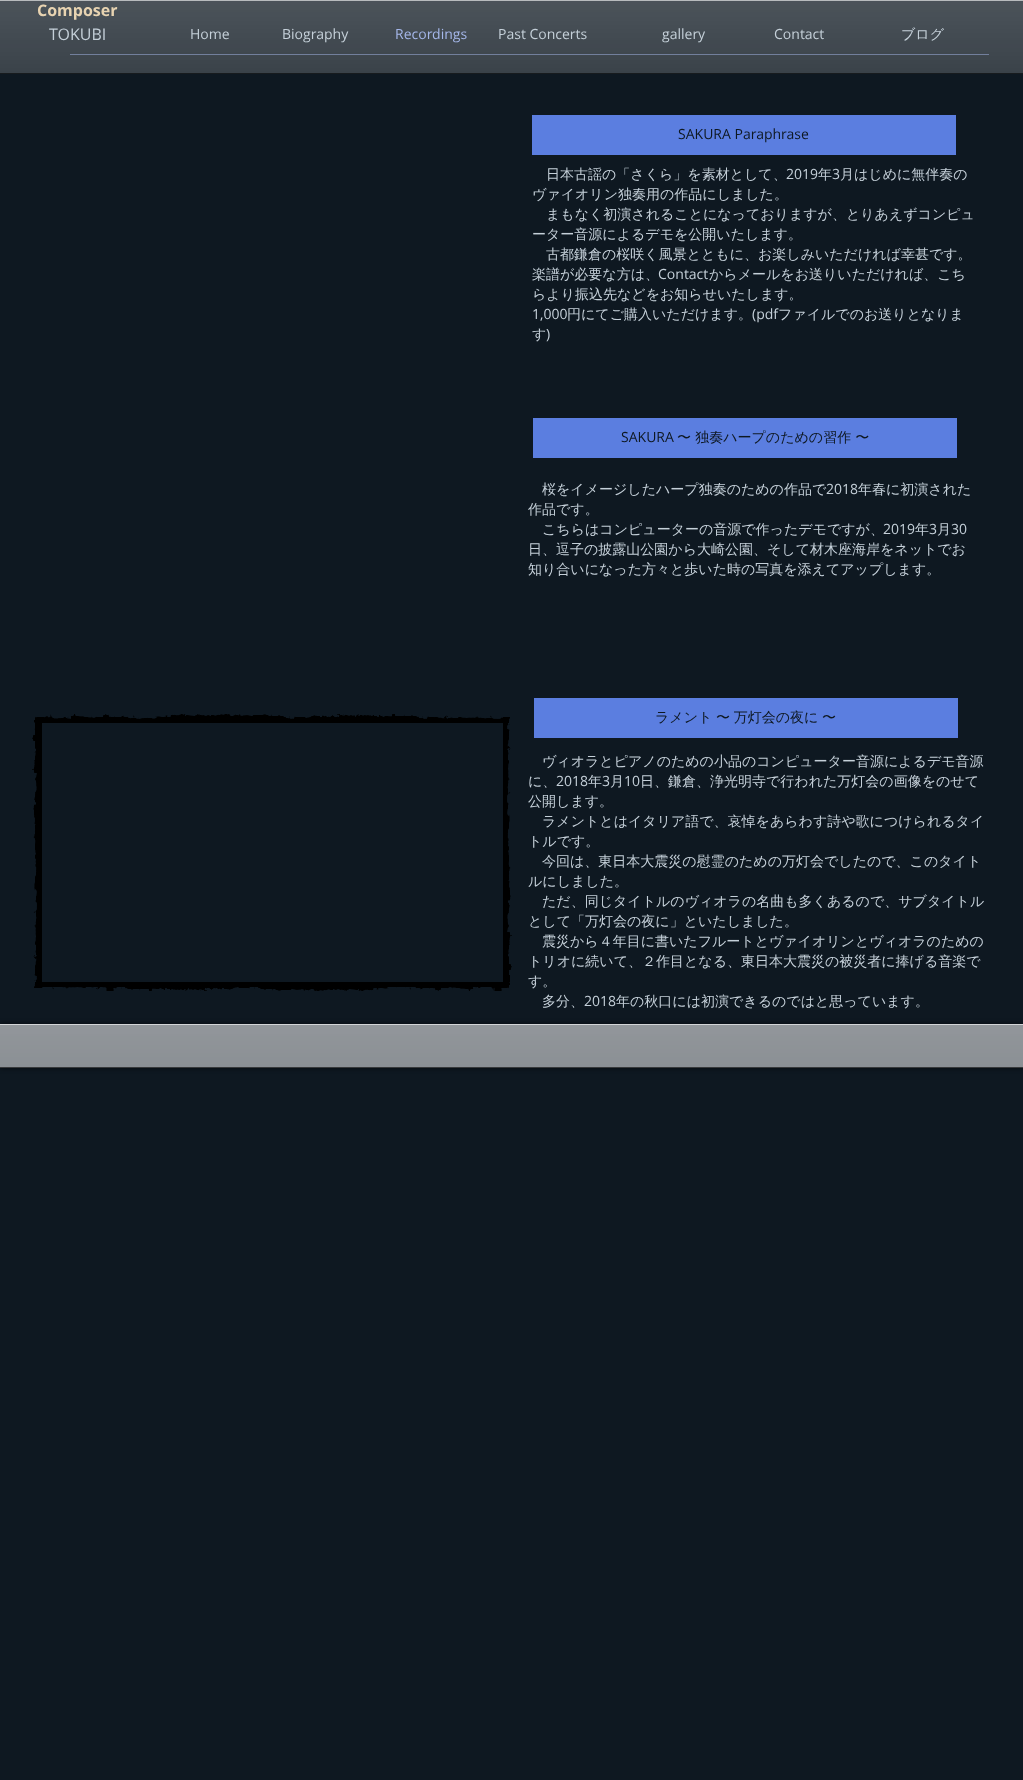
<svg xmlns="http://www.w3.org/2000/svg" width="1023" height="1780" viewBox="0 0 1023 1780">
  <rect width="100%" height="100%" fill="rgb(14,24,33)"/>
  <image x="0" y="1" width="1023" height="72" href="pic1.png"/>
  <rect x="0" y="73" width="1023" height="1" fill="rgb(23,27,30)"/>
  <rect x="0" y="0" width="1023" height="1" fill="rgb(184,187,189)"/>
  <text x="37" y="16" font-family="Open Sans" font-size="16" font-weight="bold" fill="rgb(231,211,177)">Composer</text>
  <text x="49" y="40" font-family="Open Sans" font-size="16" fill="rgb(197,208,217)">TOKUBI</text>
  <g font-family="Open Sans" font-size="14" fill="rgb(197,208,217)">
    <text x="190" y="39">Home</text>
    <text x="282" y="39">Biography</text>
  </g>
  <text x="395" y="39" font-family="Open Sans" font-size="14" fill="rgb(165,183,234)">Recordings</text>
  <g font-family="Open Sans" font-size="14" fill="rgb(197,208,217)">
    <text x="498" y="39">Past Concerts</text>
    <text x="662" y="39">gallery</text>
    <text x="774" y="39">Contact</text>
  </g>
  <text x="901" y="39" font-family="WenQuanYi Zen Hei" font-size="14" font-weight="500" fill="rgb(197,208,217)">ブログ</text>
  <rect x="70" y="54" width="919" height="1" fill="rgb(114,127,156)"/>
  <rect x="532" y="115" width="424" height="40" fill="rgb(91,126,224)"/>
  <text x="678" y="139" font-family="Open Sans" font-size="14" fill="rgb(14,24,33)">SAKURA Paraphrase</text>
  <text x="546" y="179" font-family="WenQuanYi Zen Hei" font-size="14" font-weight="500" fill="rgb(197,208,217)">日本古謡の「さくら」を素材として、</text>
  <text x="786" y="179" font-family="Open Sans" font-size="14" fill="rgb(197,208,217)">2019</text>
  <text x="818" y="179" font-family="WenQuanYi Zen Hei" font-size="14" font-weight="500" fill="rgb(197,208,217)">年</text>
  <text x="832" y="179" font-family="Open Sans" font-size="14" fill="rgb(197,208,217)">3</text>
  <g font-family="WenQuanYi Zen Hei" font-size="14" font-weight="500" fill="rgb(197,208,217)">
    <text x="840" y="179">月はじめに無伴奏の</text>
    <text x="532" y="199">ヴァイオリン独奏用の作品にしました。</text>
    <text x="546" y="219">まもなく初演されることになっておりますが、とりあえずコンピュ</text>
    <text x="532" y="239">ーター音源によるデモを公開いたします。</text>
    <text x="546" y="259">古都鎌倉の桜咲く風景とともに、お楽しみいただければ幸甚です。</text>
    <text x="532" y="279">楽譜が必要な方は、</text>
  </g>
  <text x="658" y="279" font-family="Open Sans" font-size="14" fill="rgb(197,208,217)">Contact</text>
  <g font-family="WenQuanYi Zen Hei" font-size="14" font-weight="500" fill="rgb(197,208,217)">
    <text x="709" y="279">からメールをお送りいただければ、こち</text>
    <text x="532" y="299">らより振込先などをお知らせいたします。</text>
  </g>
  <text x="532" y="319" font-family="Open Sans" font-size="14" fill="rgb(197,208,217)">1,000</text>
  <text x="567" y="319" font-family="WenQuanYi Zen Hei" font-size="14" font-weight="500" fill="rgb(197,208,217)">円にてご購入いただけます。</text>
  <text x="752" y="319" font-family="Open Sans" font-size="14" fill="rgb(197,208,217)">(pdf</text>
  <g font-family="WenQuanYi Zen Hei" font-size="14" font-weight="500" fill="rgb(197,208,217)">
    <text x="778" y="319">ファイルでのお送りとなりま</text>
    <text x="532" y="339">す</text>
  </g>
  <text x="546" y="339" font-family="Open Sans" font-size="14" fill="rgb(197,208,217)">)</text>
  <rect x="533" y="418" width="424" height="40" fill="rgb(91,126,224)"/>
  <text x="621" y="442" font-family="Open Sans" font-size="14" fill="rgb(14,24,33)">SAKURA</text>
  <text x="677" y="442" font-family="WenQuanYi Zen Hei" font-size="14" font-weight="500" fill="rgb(14,24,33)">〜 独奏ハープのための習作 〜</text>
  <text x="542" y="494" font-family="WenQuanYi Zen Hei" font-size="14" font-weight="500" fill="rgb(197,208,217)">桜をイメージしたハープ独奏のための作品で</text>
  <text x="826" y="494" font-family="Open Sans" font-size="14" fill="rgb(197,208,217)">2018</text>
  <g font-family="WenQuanYi Zen Hei" font-size="14" font-weight="500" fill="rgb(197,208,217)">
    <text x="858" y="494">年春に初演された</text>
    <text x="528" y="514">作品です。</text>
    <text x="542" y="534">こちらはコンピューターの音源で作ったデモですが、</text>
  </g>
  <text x="883" y="534" font-family="Open Sans" font-size="14" fill="rgb(197,208,217)">2019</text>
  <text x="915" y="534" font-family="WenQuanYi Zen Hei" font-size="14" font-weight="500" fill="rgb(197,208,217)">年</text>
  <text x="929" y="534" font-family="Open Sans" font-size="14" fill="rgb(197,208,217)">3</text>
  <text x="937" y="534" font-family="WenQuanYi Zen Hei" font-size="14" font-weight="500" fill="rgb(197,208,217)">月</text>
  <text x="951" y="534" font-family="Open Sans" font-size="14" fill="rgb(197,208,217)">30</text>
  <g font-family="WenQuanYi Zen Hei" font-size="14" font-weight="500" fill="rgb(197,208,217)">
    <text>
      <tspan x="528" y="554">日、逗子の披露山公園から大崎公園、そして材木座海岸をネットでお</tspan>
      <tspan x="528" y="574">知り合いになった方々と歩いた時の写真を添えてアップします。</tspan>
    </text>
  </g>
  <image x="32" y="714" width="477" height="274" href="pic2.png"/>
  <image x="35" y="717" width="477" height="274" href="pic3.png"/>
  <rect x="534" y="698" width="424" height="40" fill="rgb(91,126,224)"/>
  <text x="655" y="722" word-spacing="-0.5" font-family="WenQuanYi Zen Hei" font-size="14" font-weight="500" fill="rgb(14,24,33)">ラメント 〜 万灯会の夜に 〜</text>
  <g font-family="WenQuanYi Zen Hei" font-size="14" font-weight="500" fill="rgb(197,208,217)">
    <text x="542" y="766">ヴィオラとピアノのための小品のコンピューター音源によるデモ音源</text>
    <text x="528" y="786">に、</text>
  </g>
  <text x="556" y="786" font-family="Open Sans" font-size="14" fill="rgb(197,208,217)">2018</text>
  <text x="588" y="786" font-family="WenQuanYi Zen Hei" font-size="14" font-weight="500" fill="rgb(197,208,217)">年</text>
  <text x="602" y="786" font-family="Open Sans" font-size="14" fill="rgb(197,208,217)">3</text>
  <text x="610" y="786" font-family="WenQuanYi Zen Hei" font-size="14" font-weight="500" fill="rgb(197,208,217)">月</text>
  <text x="624" y="786" font-family="Open Sans" font-size="14" fill="rgb(197,208,217)">10</text>
  <g font-family="WenQuanYi Zen Hei" font-size="14" font-weight="500" fill="rgb(197,208,217)">
    <text x="640" y="786">日、鎌倉、浄光明寺で行われた万灯会の画像をのせて</text>
    <text x="528" y="806">公開します。</text>
    <text x="542" y="826">ラメントとはイタリア語で、哀悼をあらわす詩や歌につけられるタイ</text>
    <text x="528" y="846">トルです。</text>
    <text x="542" y="866">今回は、東日本大震災の慰霊のための万灯会でしたので、このタイト</text>
    <text x="528" y="886">ルにしました。</text>
    <text x="542" y="906">ただ、同じタイトルのヴィオラの名曲も多くあるので、サブタイトル</text>
    <text x="528" y="926">として「万灯会の夜に」といたしました。</text>
    <text x="542" y="946">震災から４年目に書いたフルートとヴァイオリンとヴィオラのための</text>
    <text>
      <tspan x="528" y="966">トリオに続いて、２作目となる、東日本大震災の被災者に捧げる音楽で</tspan>
      <tspan x="528" y="986">す。</tspan>
    </text>
    <text x="542" y="1006">多分、</text>
  </g>
  <text x="584" y="1006" font-family="Open Sans" font-size="14" fill="rgb(197,208,217)">2018</text>
  <text x="616" y="1006" font-family="WenQuanYi Zen Hei" font-size="14" font-weight="500" fill="rgb(197,208,217)">年の秋口には初演できるのではと思っています。</text>
  <rect x="0" y="1024" width="1023" height="44" fill="rgba(0,0,0,0.6)" filter="blur(2.5px)"/>
  <rect x="0" y="1025" width="1023" height="42" fill="rgb(108,114,120)"/>
  <image x="0" y="1025" width="1023" height="42" href="pic4.png"/>
  <rect x="0" y="1067" width="1023" height="1" fill="rgb(56,58,60)"/>
  <rect x="0" y="1024" width="1023" height="1" fill="rgb(211,213,215)"/>
</svg>
